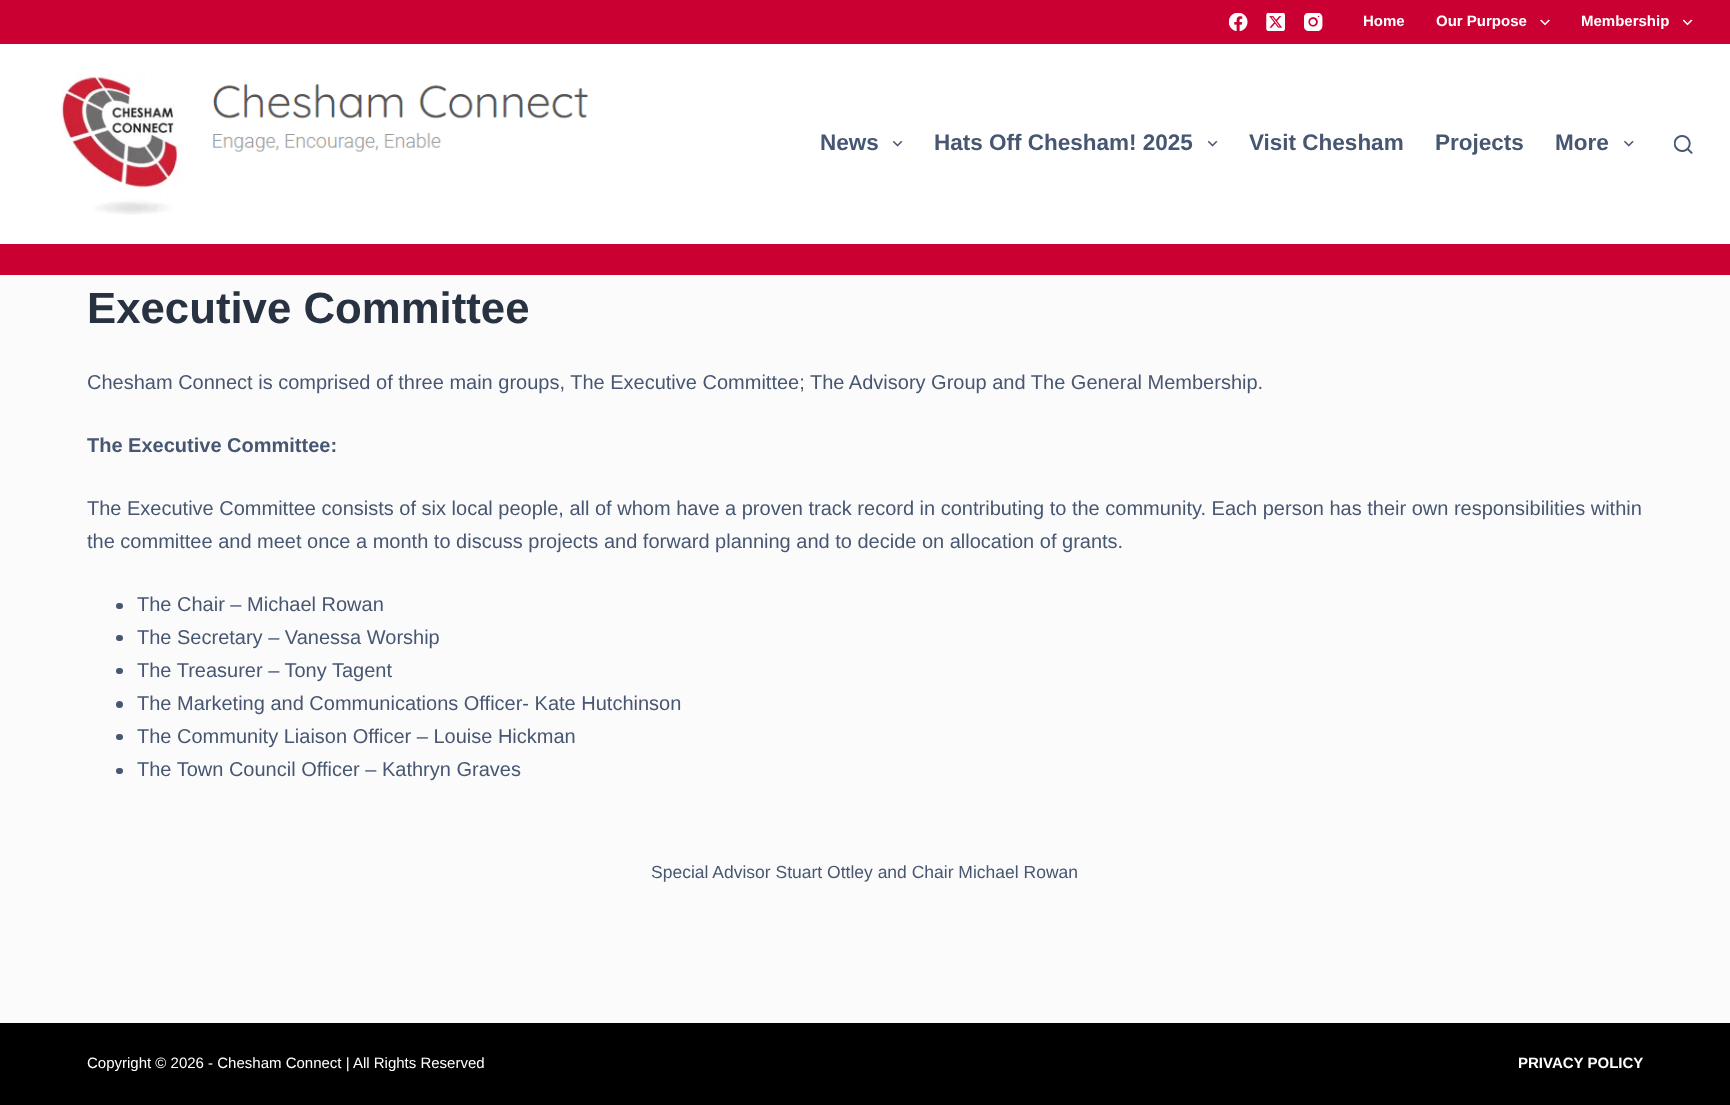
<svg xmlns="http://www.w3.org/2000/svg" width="1730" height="1105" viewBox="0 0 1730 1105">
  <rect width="100%" height="100%" fill="rgb(251,251,252)"/>
  <rect x="0" y="0" width="1730" height="44" fill="rgb(203,0,50)"/>
  <image x="1229" y="13" width="19" height="18" href="pic1.png"/>
  <image x="1266" y="13" width="19" height="18" href="pic2.png"/>
  <image x="1304" y="13" width="19" height="18" href="pic3.png"/>
  <g font-family="Liberation Sans" font-size="15" font-weight="bold" fill="rgb(255,255,255)">
    <text x="1363" y="26">Home</text>
    <text x="1436" y="26">Our Purpose</text>
  </g>
  <image x="1540" y="19" width="10" height="7" href="pic4.png"/>
  <text x="1581" y="26" font-family="Liberation Sans" font-size="15" font-weight="bold" fill="rgb(255,255,255)">Membership</text>
  <image x="1683" y="19" width="10" height="7" href="pic5.png"/>
  <rect x="0" y="44" width="1730" height="200" fill="rgb(255,255,255)"/>
  <image x="61" y="74" width="528" height="141" href="pic6.png"/>
  <text x="820" y="150" font-family="Liberation Sans" font-size="22.5" font-weight="bold" fill="rgb(71,86,113)">News</text>
  <image x="893" y="141" width="10" height="6" href="pic7.png"/>
  <text x="934" y="150" font-family="Liberation Sans" font-size="22.5" font-weight="bold" fill="rgb(71,86,113)">Hats Off Chesham! 2025</text>
  <image x="1208" y="141" width="10" height="6" href="pic7.png"/>
  <g font-family="Liberation Sans" font-size="22.5" font-weight="bold" fill="rgb(71,86,113)">
    <text x="1249" y="150">Visit Chesham</text>
    <text x="1435" y="150">Projects</text>
    <text x="1555" y="150">More</text>
  </g>
  <image x="1624" y="141" width="10" height="6" href="pic8.png"/>
  <image x="1674" y="135" width="19" height="19" href="pic9.png"/>
  <rect x="0" y="244" width="1730" height="31" fill="rgb(203,0,50)"/>
  <text x="87" y="323" font-family="Liberation Sans" font-size="43.75" font-weight="bold" fill="rgb(41,50,65)">Executive Committee</text>
  <text x="87" y="389" font-family="Liberation Sans" font-size="20" fill="rgb(71,86,113)">Chesham Connect is comprised of three main groups, The Executive Committee; The Advisory Group and The General Membership.</text>
  <text x="87" y="452" font-family="Liberation Sans" font-size="20" font-weight="bold" fill="rgb(71,86,113)">The Executive Committee:</text>
  <g font-family="Liberation Sans" font-size="20" fill="rgb(71,86,113)">
    <text>
      <tspan x="87" y="515">The Executive Committee consists of six local people, all of whom have a proven track record in contributing to the community. Each person has their own responsibilities within</tspan>
      <tspan x="87" y="548">the committee and meet once a month to discuss projects and forward planning and to decide on allocation of grants.</tspan>
    </text>
  </g>
  <rect x="116" y="603" width="7" height="6" rx="3" fill="rgb(71,86,113)"/>
  <text x="137" y="611" font-family="Liberation Sans" font-size="20" fill="rgb(71,86,113)">The Chair – Michael Rowan</text>
  <rect x="116" y="635" width="7" height="6" rx="3" fill="rgb(71,86,113)"/>
  <text x="137" y="644" font-family="Liberation Sans" font-size="20" fill="rgb(71,86,113)">The Secretary – Vanessa Worship</text>
  <rect x="116" y="668" width="7" height="6" rx="3" fill="rgb(71,86,113)"/>
  <text x="137" y="677" font-family="Liberation Sans" font-size="20" fill="rgb(71,86,113)">The Treasurer – Tony Tagent</text>
  <circle cx="119.5" cy="704.5" r="3.5" fill="rgb(71,86,113)"/>
  <text x="137" y="710" font-family="Liberation Sans" font-size="20" fill="rgb(71,86,113)">The Marketing and Communications Officer- Kate Hutchinson</text>
  <rect x="116" y="734" width="7" height="6" rx="3" fill="rgb(71,86,113)"/>
  <text x="137" y="743" font-family="Liberation Sans" font-size="20" fill="rgb(71,86,113)">The Community Liaison Officer – Louise Hickman</text>
  <rect x="116" y="768" width="7" height="6" rx="3" fill="rgb(71,86,113)"/>
  <text x="137" y="776" font-family="Liberation Sans" font-size="20" fill="rgb(71,86,113)">The Town Council Officer – Kathryn Graves</text>
  <text x="651" y="878" font-family="Liberation Sans" font-size="17.5" fill="rgb(71,86,113)">Special Advisor Stuart Ottley and Chair Michael Rowan</text>
  <rect x="0" y="1023" width="1730" height="82" fill="rgb(0,0,0)"/>
  <text x="87" y="1068" font-family="Liberation Sans" font-size="15" fill="rgb(255,255,255)">Copyright © 2026 - Chesham Connect | All Rights Reserved</text>
  <text x="1518" y="1068" font-family="Liberation Sans" font-size="15" font-weight="bold" fill="rgb(255,255,255)">PRIVACY POLICY</text>
</svg>
